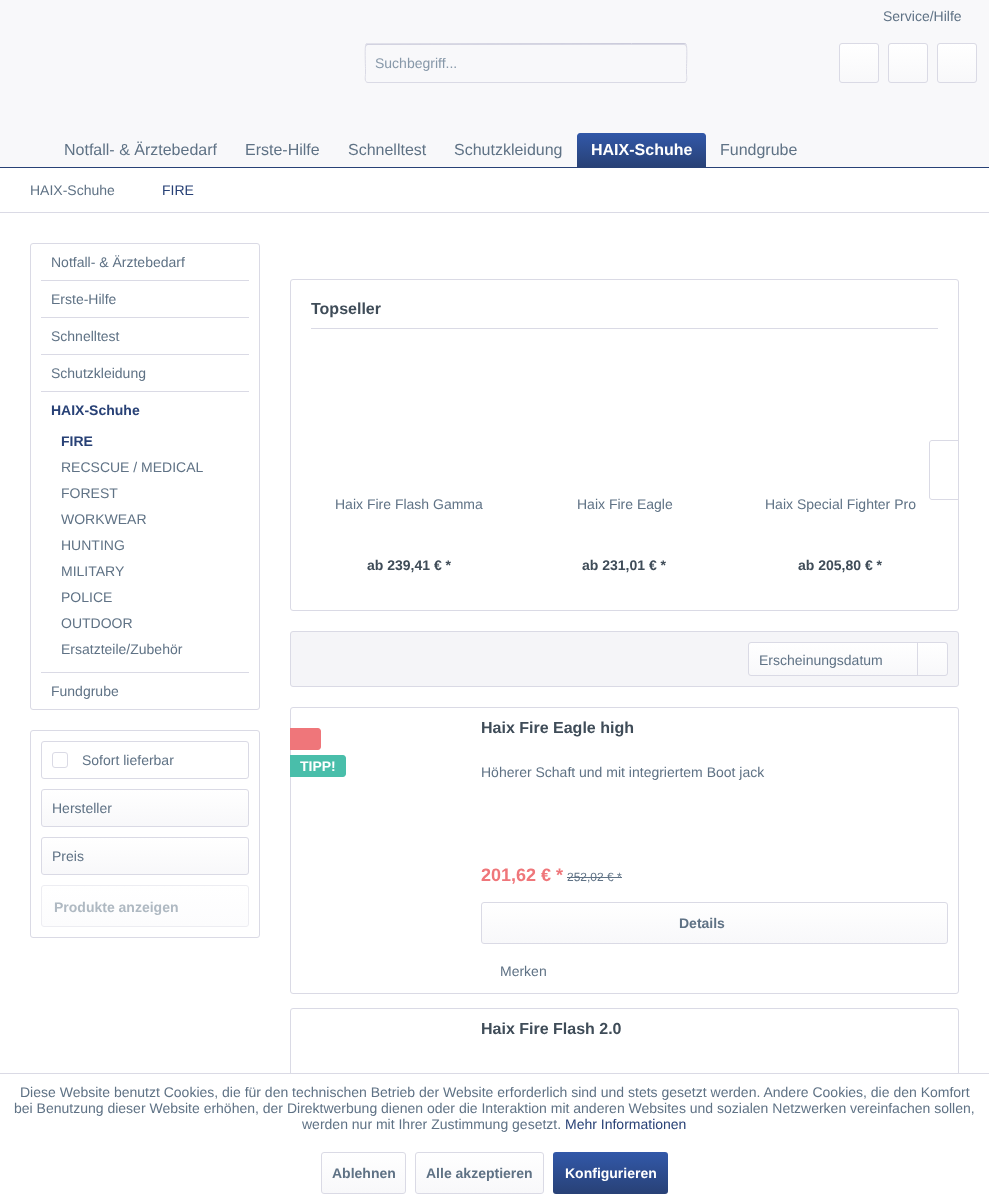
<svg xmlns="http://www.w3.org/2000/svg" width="989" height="1204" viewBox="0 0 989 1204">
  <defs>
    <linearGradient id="g1" gradientUnits="userSpaceOnUse" x1="859" y1="44" x2="859" y2="82"><stop offset="0" stop-color="rgb(255,255,255)"/><stop offset="1" stop-color="rgb(248,248,250)"/></linearGradient>
    <linearGradient id="g2" gradientUnits="userSpaceOnUse" x1="908" y1="44" x2="908" y2="82"><stop offset="0" stop-color="rgb(255,255,255)"/><stop offset="1" stop-color="rgb(248,248,250)"/></linearGradient>
    <linearGradient id="g3" gradientUnits="userSpaceOnUse" x1="957" y1="44" x2="957" y2="82"><stop offset="0" stop-color="rgb(255,255,255)"/><stop offset="1" stop-color="rgb(248,248,250)"/></linearGradient>
    <linearGradient id="g4" gradientUnits="userSpaceOnUse" x1="642" y1="133" x2="642" y2="167"><stop offset="0" stop-color="rgb(50,88,169)"/><stop offset="1" stop-color="rgb(40,65,118)"/></linearGradient>
    <linearGradient id="g5" gradientUnits="userSpaceOnUse" x1="145" y1="790" x2="145" y2="826"><stop offset="0" stop-color="rgb(255,255,255)"/><stop offset="1" stop-color="rgb(248,248,250)"/></linearGradient>
    <linearGradient id="g6" gradientUnits="userSpaceOnUse" x1="145" y1="838" x2="145" y2="874"><stop offset="0" stop-color="rgb(255,255,255)"/><stop offset="1" stop-color="rgb(248,248,250)"/></linearGradient>
    <linearGradient id="g7" gradientUnits="userSpaceOnUse" x1="145" y1="886" x2="145" y2="926"><stop offset="0" stop-color="rgb(255,255,255)"/><stop offset="1" stop-color="rgb(252,252,253)"/></linearGradient>
    <linearGradient id="g8" gradientUnits="userSpaceOnUse" x1="848" y1="643" x2="848" y2="675"><stop offset="0" stop-color="rgb(255,255,255)"/><stop offset="1" stop-color="rgb(248,248,250)"/></linearGradient>
    <linearGradient id="g9" gradientUnits="userSpaceOnUse" x1="715" y1="903" x2="715" y2="943"><stop offset="0" stop-color="rgb(255,255,255)"/><stop offset="1" stop-color="rgb(248,248,250)"/></linearGradient>
    <linearGradient id="g10" gradientUnits="userSpaceOnUse" x1="364" y1="1153" x2="364" y2="1193"><stop offset="0" stop-color="rgb(255,255,255)"/><stop offset="1" stop-color="rgb(248,248,250)"/></linearGradient>
    <linearGradient id="g11" gradientUnits="userSpaceOnUse" x1="480" y1="1153" x2="480" y2="1193"><stop offset="0" stop-color="rgb(255,255,255)"/><stop offset="1" stop-color="rgb(248,248,250)"/></linearGradient>
    <linearGradient id="g12" gradientUnits="userSpaceOnUse" x1="611" y1="1152" x2="611" y2="1194"><stop offset="0" stop-color="rgb(50,88,169)"/><stop offset="1" stop-color="rgb(40,65,118)"/></linearGradient>
  </defs>
  <rect width="100%" height="100%" fill="rgb(248,248,250)"/>
  <text x="883" y="21" font-family="Liberation Sans" font-size="14" fill="rgb(95,114,133)">Service/Hilfe</text>
  <path d="M368 45H684C685 45 686 46 686 47C686 46 686 44 684 44H367L366 45V47C366 46 367 45 368 45Z" fill="rgb(218,218,229)"/>
  <path d="M366 44H367L631.5 43.5H684L686 44" fill="none" stroke="rgb(203,203,219)"/>
  <path d="M686 44C687.5 46 686.5 65 686.5 68.5V74.5C686.5 76 688 82.5 684 82.5H368C364 82.5 365.5 76 365.5 74.5V68.5C365.5 65 364.5 46 366 44" fill="none" stroke="rgb(218,218,229)"/>
  <text x="375" y="68" font-family="Liberation Sans" font-size="14" fill="rgb(135,152,169)">Suchbegriff...</text>
  <rect x="840" y="44" width="38" height="38" rx="2" fill="url(#g1)"/>
  <rect x="839.5" y="43.5" width="39" height="39" rx="2.5" fill="none" stroke="rgb(218,218,229)"/>
  <rect x="889" y="44" width="38" height="38" rx="2" fill="url(#g2)"/>
  <rect x="888.5" y="43.5" width="39" height="39" rx="2.5" fill="none" stroke="rgb(218,218,229)"/>
  <rect x="938" y="44" width="38" height="38" rx="2" fill="url(#g3)"/>
  <rect x="937.5" y="43.5" width="39" height="39" rx="2.5" fill="none" stroke="rgb(218,218,229)"/>
  <rect x="0" y="167" width="989" height="1" fill="rgb(40,65,118)"/>
  <g font-family="Liberation Sans" font-size="16" fill="rgb(95,114,133)">
    <text x="64" y="155">Notfall- &amp; Ärztebedarf</text>
    <text x="245" y="155">Erste-Hilfe</text>
    <text x="348" y="155">Schnelltest</text>
    <text x="454" y="155">Schutzkleidung</text>
  </g>
  <path d="M580 133H703C704.5 133 706 134.5 706 136V167H577V136C577 134.5 578.5 133 580 133Z" fill="url(#g4)"/>
  <text x="591" y="155" font-family="Liberation Sans" font-size="16" font-weight="bold" fill="rgb(255,255,255)">HAIX-Schuhe</text>
  <text x="720" y="155" font-family="Liberation Sans" font-size="16" fill="rgb(95,114,133)">Fundgrube</text>
  <rect x="0" y="168" width="989" height="905" fill="rgb(255,255,255)"/>
  <rect x="0" y="212" width="989" height="1" fill="rgb(218,218,229)"/>
  <text x="30" y="195" font-family="Liberation Sans" font-size="14" fill="rgb(95,114,133)">HAIX-Schuhe</text>
  <text x="162" y="195" font-family="Liberation Sans" font-size="14" fill="rgb(40,65,118)">FIRE</text>
  <rect x="30.5" y="243.5" width="229" height="466" rx="2.5" fill="none" stroke="rgb(218,218,229)"/>
  <rect x="41" y="280" width="208" height="1" fill="rgb(218,218,229)"/>
  <text x="51" y="267" font-family="Liberation Sans" font-size="14" fill="rgb(95,114,133)">Notfall- &amp; Ärztebedarf</text>
  <rect x="41" y="317" width="208" height="1" fill="rgb(218,218,229)"/>
  <text x="51" y="304" font-family="Liberation Sans" font-size="14" fill="rgb(95,114,133)">Erste-Hilfe</text>
  <rect x="41" y="354" width="208" height="1" fill="rgb(218,218,229)"/>
  <text x="51" y="341" font-family="Liberation Sans" font-size="14" fill="rgb(95,114,133)">Schnelltest</text>
  <rect x="41" y="391" width="208" height="1" fill="rgb(218,218,229)"/>
  <text x="51" y="378" font-family="Liberation Sans" font-size="14" fill="rgb(95,114,133)">Schutzkleidung</text>
  <rect x="41" y="672" width="208" height="1" fill="rgb(218,218,229)"/>
  <g font-family="Liberation Sans" font-size="14" font-weight="bold" fill="rgb(40,65,118)">
    <text x="51" y="415">HAIX-Schuhe</text>
    <text x="61" y="446">FIRE</text>
  </g>
  <g font-family="Liberation Sans" font-size="14" fill="rgb(95,114,133)">
    <text>
      <tspan x="61" y="472">RECSCUE / MEDICAL</tspan>
      <tspan x="61" y="498">FOREST</tspan>
      <tspan x="61" y="524">WORKWEAR</tspan>
      <tspan x="61" y="550">HUNTING</tspan>
      <tspan x="61" y="576">MILITARY</tspan>
      <tspan x="61" y="602">POLICE</tspan>
      <tspan x="61" y="628">OUTDOOR</tspan>
      <tspan x="61" y="654">Ersatzteile/Zubehör</tspan>
    </text>
    <text x="51" y="696">Fundgrube</text>
  </g>
  <rect x="30.5" y="730.5" width="229" height="207" rx="2.5" fill="none" stroke="rgb(218,218,229)"/>
  <rect x="41.5" y="741.5" width="207" height="37" rx="2.5" fill="none" stroke="rgb(218,218,229)"/>
  <rect x="52.5" y="752.5" width="15" height="15" rx="2.5" fill="none" stroke="rgb(218,218,229)"/>
  <text x="82" y="765" font-family="Liberation Sans" font-size="14" fill="rgb(95,114,133)">Sofort lieferbar</text>
  <rect x="42" y="790" width="206" height="36" rx="2" fill="url(#g5)"/>
  <rect x="41.5" y="789.5" width="207" height="37" rx="2.5" fill="none" stroke="rgb(218,218,229)"/>
  <text x="52" y="813" font-family="Liberation Sans" font-size="14" fill="rgb(95,114,133)">Hersteller</text>
  <rect x="42" y="838" width="206" height="36" rx="2" fill="url(#g6)"/>
  <rect x="41.5" y="837.5" width="207" height="37" rx="2.5" fill="none" stroke="rgb(218,218,229)"/>
  <text x="52" y="861" font-family="Liberation Sans" font-size="14" fill="rgb(95,114,133)">Preis</text>
  <rect x="42" y="886" width="206" height="40" rx="2" fill="url(#g7)"/>
  <rect x="41.5" y="885.5" width="207" height="41" rx="2.5" fill="none" stroke="rgb(237,237,242)"/>
  <text x="54" y="912" font-family="Liberation Sans" font-size="14" font-weight="bold" fill="rgb(175,185,194)">Produkte anzeigen</text>
  <rect x="290.5" y="279.5" width="668" height="331" rx="2.5" fill="none" stroke="rgb(218,218,229)"/>
  <rect x="311" y="328" width="627" height="1" fill="rgb(218,218,229)"/>
  <text x="311" y="314" font-family="Liberation Sans" font-size="16" font-weight="bold" fill="rgb(63,76,88)">Topseller</text>
  <path d="M932 440.5H958.5V499.5H932C930.5 499.5 929.5 498.5 929.5 497V443C929.5 441.5 930.5 440.5 932 440.5Z" fill="none" stroke="rgb(218,218,229)"/>
  <text x="335" y="509" font-family="Liberation Sans" font-size="14" fill="rgb(95,114,133)">Haix Fire Flash Gamma</text>
  <text x="367" y="570" font-family="Liberation Sans" font-size="14" font-weight="bold" fill="rgb(63,76,88)">ab 239,41 € *</text>
  <text x="577" y="509" font-family="Liberation Sans" font-size="14" fill="rgb(95,114,133)">Haix Fire Eagle</text>
  <text x="582" y="570" font-family="Liberation Sans" font-size="14" font-weight="bold" fill="rgb(63,76,88)">ab 231,01 € *</text>
  <text x="765" y="509" font-family="Liberation Sans" font-size="14" fill="rgb(95,114,133)">Haix Special Fighter Pro</text>
  <text x="798" y="570" font-family="Liberation Sans" font-size="14" font-weight="bold" fill="rgb(63,76,88)">ab 205,80 € *</text>
  <rect x="290.5" y="631.5" width="668" height="55" rx="2.5" fill="rgb(245,245,248)" stroke="rgb(218,218,229)"/>
  <rect x="749" y="643" width="198" height="32" rx="2" fill="url(#g8)"/>
  <rect x="748.5" y="642.5" width="199" height="33" rx="2.5" fill="none" stroke="rgb(218,218,229)"/>
  <text x="759" y="665" font-family="Liberation Sans" font-size="14" fill="rgb(95,114,133)">Erscheinungsdatum</text>
  <rect x="917" y="643" width="1" height="33" fill="rgb(218,218,229)"/>
  <rect x="290.5" y="707.5" width="668" height="286" rx="2.5" fill="none" stroke="rgb(218,218,229)"/>
  <path d="M290 728H318C319.5 728 321 729.5 321 731V747C321 748.5 319.5 750 318 750H290Z" fill="rgb(239,118,122)"/>
  <path d="M290 755H343C344.5 755 346 756.5 346 758V774C346 775.5 344.5 777 343 777H290Z" fill="rgb(73,190,170)"/>
  <text x="300" y="771" font-family="Liberation Sans" font-size="14" font-weight="bold" fill="rgb(255,255,255)">TIPP!</text>
  <text x="481" y="733" font-family="Liberation Sans" font-size="16" font-weight="bold" fill="rgb(63,76,88)">Haix Fire Eagle high</text>
  <text x="481" y="777" font-family="Liberation Sans" font-size="14" fill="rgb(95,114,133)">Höherer Schaft und mit integriertem Boot jack</text>
  <text x="481" y="881" font-family="Liberation Sans" font-size="18" font-weight="bold" fill="rgb(239,118,122)">201,62 € *</text>
  <text x="567" y="881" font-family="Liberation Sans" font-size="12" fill="rgb(95,114,133)">252,02 € *</text>
  <rect x="567" y="877" width="55" height="1" fill="rgb(95,114,133)"/>
  <rect x="482" y="903" width="465" height="40" rx="2" fill="url(#g9)"/>
  <rect x="481.5" y="902.5" width="466" height="41" rx="2.5" fill="none" stroke="rgb(218,218,229)"/>
  <text x="679" y="928" font-family="Liberation Sans" font-size="14" font-weight="bold" fill="rgb(95,114,133)">Details</text>
  <text x="500" y="976" font-family="Liberation Sans" font-size="14" fill="rgb(95,114,133)">Merken</text>
  <rect x="290.5" y="1008.5" width="668" height="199" rx="2.5" fill="none" stroke="rgb(218,218,229)"/>
  <text x="481" y="1034" font-family="Liberation Sans" font-size="16" font-weight="bold" fill="rgb(63,76,88)">Haix Fire Flash 2.0</text>
  <rect x="0" y="1074" width="989" height="130" fill="rgb(255,255,255)"/>
  <rect x="0" y="1073" width="989" height="1" fill="rgb(218,218,229)"/>
  <g font-family="Liberation Sans" font-size="14" fill="rgb(95,114,133)">
    <text x="20" y="1097">Diese Website benutzt Cookies, die für den technischen Betrieb der Website erforderlich sind und stets gesetzt werden. Andere Cookies, die den Komfort</text>
    <text x="14" y="1113">bei Benutzung dieser Website erhöhen, der Direktwerbung dienen oder die Interaktion mit anderen Websites und sozialen Netzwerken vereinfachen sollen,</text>
    <text x="302" y="1129">werden nur mit Ihrer Zustimmung gesetzt.</text>
  </g>
  <text x="565" y="1129" font-family="Liberation Sans" font-size="14" fill="rgb(40,65,118)">Mehr Informationen</text>
  <rect x="322" y="1153" width="83" height="40" rx="2" fill="url(#g10)"/>
  <rect x="321.5" y="1152.5" width="84" height="41" rx="2.5" fill="none" stroke="rgb(218,218,229)"/>
  <text x="332" y="1178" font-family="Liberation Sans" font-size="14" font-weight="bold" fill="rgb(95,114,133)">Ablehnen</text>
  <rect x="416" y="1153" width="127" height="40" rx="2" fill="url(#g11)"/>
  <rect x="415.5" y="1152.5" width="128" height="41" rx="2.5" fill="none" stroke="rgb(218,218,229)"/>
  <text x="426" y="1178" font-family="Liberation Sans" font-size="14" font-weight="bold" fill="rgb(95,114,133)">Alle akzeptieren</text>
  <rect x="553" y="1152" width="115" height="42" rx="3" fill="url(#g12)"/>
  <text x="565" y="1178" font-family="Liberation Sans" font-size="14" font-weight="bold" fill="rgb(255,255,255)">Konfigurieren</text>
</svg>
